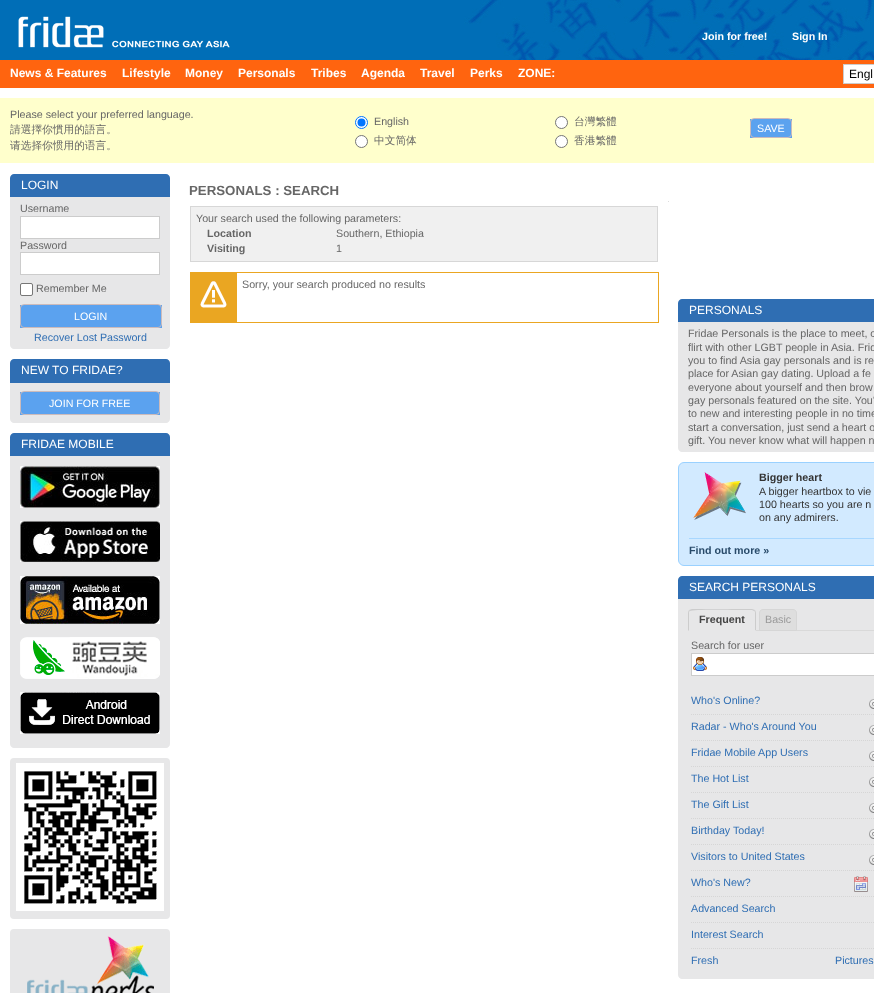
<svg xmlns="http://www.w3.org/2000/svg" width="874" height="993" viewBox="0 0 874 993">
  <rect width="100%" height="100%" fill="rgb(255,255,255)"/>
  <image x="0" y="0" width="874" height="60" href="pic1.png"/>
  <image x="18" y="16" width="212" height="32" href="pic2.png"/>
  <g font-family="Liberation Sans" font-size="10.7" font-weight="bold" fill="rgb(255,255,255)">
    <text x="702" y="40">Join for free!</text>
    <text x="792" y="40">Sign In</text>
  </g>
  <rect x="0" y="60" width="874" height="28" fill="rgb(255,100,15)"/>
  <g font-family="Liberation Sans" font-size="12" font-weight="bold" fill="rgb(255,255,255)">
    <text x="10" y="77">News &amp; Features</text>
    <text x="122" y="77">Lifestyle</text>
    <text x="185" y="77">Money</text>
    <text x="238" y="77">Personals</text>
    <text x="311" y="77">Tribes</text>
    <text x="361" y="77">Agenda</text>
    <text x="420" y="77">Travel</text>
    <text x="470" y="77">Perks</text>
    <text x="518" y="77">ZONE:</text>
  </g>
  <rect x="843.5" y="64.5" width="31" height="19" fill="rgb(255,255,255)" stroke="rgb(204,204,204)"/>
  <text x="849" y="78" font-family="Liberation Sans" font-size="12" fill="rgb(0,0,0)">Engl</text>
  <rect x="0" y="98" width="874" height="65" fill="rgb(255,255,204)"/>
  <text x="10" y="118" font-family="Liberation Sans" font-size="10.7" fill="rgb(102,102,102)">Please select your preferred language.</text>
  <g font-family="WenQuanYi Zen Hei" font-size="10.7" font-weight="500" fill="rgb(102,102,102)">
    <text>
      <tspan x="10" y="133">請選擇你慣用的語言。</tspan>
      <tspan x="10" y="149">请选择你惯用的语言。</tspan>
    </text>
  </g>
  <circle cx="361.5" cy="122.5" r="6" fill="rgb(255,255,255)" stroke="rgb(0,117,255)"/>
  <circle cx="361.5" cy="122.5" r="4" fill="rgb(0,117,255)"/>
  <text x="374" y="125" font-family="Liberation Sans" font-size="10.7" fill="rgb(102,102,102)">English</text>
  <circle cx="361.5" cy="141.5" r="6" fill="rgb(255,255,255)" stroke="rgb(118,118,118)"/>
  <text x="374" y="144" font-family="WenQuanYi Zen Hei" font-size="10.7" font-weight="500" fill="rgb(102,102,102)">中文简体</text>
  <circle cx="561.5" cy="122.5" r="6" fill="rgb(255,255,255)" stroke="rgb(118,118,118)"/>
  <text x="574" y="125" font-family="WenQuanYi Zen Hei" font-size="10.7" font-weight="500" fill="rgb(102,102,102)">台灣繁體</text>
  <circle cx="561.5" cy="141.5" r="6" fill="rgb(255,255,255)" stroke="rgb(118,118,118)"/>
  <text x="574" y="144" font-family="WenQuanYi Zen Hei" font-size="10.7" font-weight="500" fill="rgb(102,102,102)">香港繁體</text>
  <rect x="750" y="119" width="42" height="19" fill="rgb(91,162,239)"/>
  <rect x="750.5" y="118.5" width="41" height="19" rx="3.5" fill="none" stroke="rgb(204,187,187)"/>
  <text x="757" y="132" font-family="Liberation Sans" font-size="10.7" fill="rgb(255,255,255)">SAVE</text>
  <path d="M14 174H166C168 174 170 176 170 178V197H10V178C10 176 12 174 14 174Z" fill="rgb(47,110,179)"/>
  <text x="21" y="189" font-family="Liberation Sans" font-size="12" fill="rgb(255,255,255)">LOGIN</text>
  <path d="M10 197H170V345C170 347 168 349 166 349H14C12 349 10 347 10 345Z" fill="rgb(231,231,232)"/>
  <text x="20" y="212" font-family="Liberation Sans" font-size="10.7" fill="rgb(102,102,102)">Username</text>
  <rect x="20.5" y="216.5" width="139" height="22" fill="rgb(255,255,255)" stroke="rgb(204,204,204)"/>
  <text x="20" y="249" font-family="Liberation Sans" font-size="10.7" fill="rgb(102,102,102)">Password</text>
  <rect x="20.5" y="252.5" width="139" height="22" fill="rgb(255,255,255)" stroke="rgb(204,204,204)"/>
  <rect x="20.5" y="283.5" width="12" height="12" rx="1.5" fill="rgb(255,255,255)" stroke="rgb(118,118,118)"/>
  <text x="36" y="292" font-family="Liberation Sans" font-size="10.7" fill="rgb(102,102,102)">Remember Me</text>
  <rect x="20" y="305" width="142" height="23" fill="rgb(91,162,239)"/>
  <rect x="20.5" y="304.5" width="141" height="23" rx="3.5" fill="none" stroke="rgb(204,187,187)"/>
  <text x="74" y="320" font-family="Liberation Sans" font-size="10.7" fill="rgb(255,255,255)">LOGIN</text>
  <text x="34" y="341" font-family="Liberation Sans" font-size="10.7" fill="rgb(47,110,179)">Recover Lost Password</text>
  <path d="M14 359H166C168 359 170 361 170 363V383H10V363C10 361 12 359 14 359Z" fill="rgb(47,110,179)"/>
  <text x="21" y="374" font-family="Liberation Sans" font-size="12" fill="rgb(255,255,255)">NEW TO FRIDAE?</text>
  <path d="M10 383H170V419C170 421 168 423 166 423H14C12 423 10 421 10 419Z" fill="rgb(231,231,232)"/>
  <rect x="20" y="392" width="140" height="23" fill="rgb(91,162,239)"/>
  <rect x="20.5" y="391.5" width="139" height="23" rx="3.5" fill="none" stroke="rgb(204,187,187)"/>
  <text x="49" y="407" font-family="Liberation Sans" font-size="10.7" fill="rgb(255,255,255)">JOIN FOR FREE</text>
  <path d="M14 433H166C168 433 170 435 170 437V456H10V437C10 435 12 433 14 433Z" fill="rgb(47,110,179)"/>
  <text x="21" y="448" font-family="Liberation Sans" font-size="12" fill="rgb(255,255,255)">FRIDAE MOBILE</text>
  <path d="M10 456H170V744C170 746 168 748 166 748H14C12 748 10 746 10 744Z" fill="rgb(231,231,232)"/>
  <image x="20" y="466" width="140" height="42" href="pic3.png"/>
  <image x="20" y="521" width="140" height="41" href="pic4.png"/>
  <image x="20" y="576" width="140" height="48" href="pic5.png"/>
  <image x="20" y="637" width="140" height="42" href="pic6.png"/>
  <image x="20" y="692" width="140" height="42" href="pic7.png"/>
  <rect x="10" y="758" width="160" height="161" rx="4" fill="rgb(231,231,232)"/>
  <image x="16" y="763" width="148" height="148" href="pic8.png"/>
  <rect x="10" y="929" width="160" height="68" rx="4" fill="rgb(231,231,232)"/>
  <image x="27" y="936" width="127" height="57" href="pic9.png"/>
  <rect x="668" y="201" width="1" height="1" fill="rgb(221,221,221)"/>
  <text x="189" y="195" font-family="Liberation Sans" font-size="13.25" font-weight="bold" fill="rgb(102,102,102)">PERSONALS : SEARCH</text>
  <rect x="190.5" y="206.5" width="467" height="55" fill="rgb(240,240,240)" stroke="rgb(215,215,215)"/>
  <text x="196" y="222" font-family="Liberation Sans" font-size="10.7" fill="rgb(102,102,102)">Your search used the following parameters:</text>
  <text x="207" y="237" font-family="Liberation Sans" font-size="10.7" font-weight="bold" fill="rgb(102,102,102)">Location</text>
  <text x="336" y="237" font-family="Liberation Sans" font-size="10.7" fill="rgb(102,102,102)">Southern, Ethiopia</text>
  <text x="207" y="252" font-family="Liberation Sans" font-size="10.7" font-weight="bold" fill="rgb(102,102,102)">Visiting</text>
  <text x="336" y="252" font-family="Liberation Sans" font-size="10.7" fill="rgb(102,102,102)">1</text>
  <rect x="191" y="273" width="46" height="49" fill="rgb(234,166,34)"/>
  <rect x="190" y="272" width="469" height="1" fill="rgb(234,166,34)"/>
  <rect x="658" y="272" width="1" height="51" fill="rgb(234,166,34)"/>
  <rect x="190" y="322" width="469" height="1" fill="rgb(234,166,34)"/>
  <rect x="190" y="272" width="1" height="51" fill="rgb(234,166,34)"/>
  <image x="200" y="281" width="27" height="27" href="pic10.png"/>
  <text x="242" y="288" font-family="Liberation Sans" font-size="10.7" fill="rgb(102,102,102)">Sorry, your search produced no results</text>
  <path d="M682 299H874C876 299 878 301 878 303V322H678V303C678 301 680 299 682 299Z" fill="rgb(47,110,179)"/>
  <text x="689" y="314" font-family="Liberation Sans" font-size="12" fill="rgb(255,255,255)">PERSONALS</text>
  <path d="M678 322H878V448C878 450 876 452 874 452H682C680 452 678 450 678 448Z" fill="rgb(231,231,232)"/>
  <g font-family="Liberation Sans" font-size="10.7" fill="rgb(102,102,102)">
    <text>
      <tspan x="688" y="337">Fridae Personals is the place to meet, c</tspan>
      <tspan x="688" y="351">flirt with other LGBT people in Asia. Frid</tspan>
      <tspan x="688" y="364">you to find Asia gay personals and is re</tspan>
      <tspan x="688" y="377">place for Asian gay dating. Upload a fe</tspan>
      <tspan x="688" y="391">everyone about yourself and then brow</tspan>
      <tspan x="688" y="404">gay personals featured on the site. You’</tspan>
      <tspan x="688" y="417">to new and interesting people in no time</tspan>
      <tspan x="688" y="431">start a conversation, just send a heart o</tspan>
      <tspan x="688" y="444">gift. You never know what will happen n</tspan>
    </text>
  </g>
  <rect x="678.5" y="462.5" width="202" height="103" rx="5.5" fill="rgb(210,234,255)" stroke="rgb(154,209,255)"/>
  <image x="693" y="472" width="53" height="48" href="pic11.png"/>
  <text x="759" y="481" font-family="Liberation Sans" font-size="10.7" font-weight="bold" fill="rgb(51,51,51)">Bigger heart</text>
  <g font-family="Liberation Sans" font-size="10.7" fill="rgb(51,51,51)">
    <text>
      <tspan x="759" y="495">A bigger heartbox to vie</tspan>
      <tspan x="759" y="508">100 hearts so you are n</tspan>
      <tspan x="759" y="521">on any admirers.</tspan>
    </text>
  </g>
  <rect x="689" y="538" width="185" height="1" fill="rgb(168,215,255)"/>
  <text x="689" y="554" font-family="Liberation Sans" font-size="10.7" font-weight="bold" fill="rgb(41,75,106)">Find out more »</text>
  <path d="M682 576H874C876 576 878 578 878 580V599H678V580C678 578 680 576 682 576Z" fill="rgb(47,110,179)"/>
  <text x="689" y="591" font-family="Liberation Sans" font-size="12" fill="rgb(255,255,255)">SEARCH PERSONALS</text>
  <path d="M678 599H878V975C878 977 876 979 874 979H682C680 979 678 977 678 975Z" fill="rgb(231,231,232)"/>
  <rect x="756" y="630" width="118" height="1" fill="rgb(217,217,217)"/>
  <path d="M692 609L689 610L690 611C692 609 736 610 742 610H752L754 611L755 610L752 609Z" fill="rgb(204,204,204)"/>
  <path d="M756 631V613C756 612 755.5 611 755 610L754 611C755 611 755 612 755 613V630Z" fill="rgb(204,204,204)"/>
  <path d="M756 631L755 630H689L688 631Z" fill="rgb(231,231,232)"/>
  <path d="M688 631L689 630V613C689 612 689 611 690 611L689 610C688.5 611 688 612 688 613Z" fill="rgb(204,204,204)"/>
  <text x="699" y="623" font-family="Liberation Sans" font-size="10.7" font-weight="bold" fill="rgb(68,68,68)">Frequent</text>
  <path d="M763 609.5H793C795 609.5 796.5 611 796.5 613V630.5H759.5V613C759.5 611 761 609.5 763 609.5Z" fill="rgb(222,222,222)" stroke="rgb(214,214,214)"/>
  <text x="765" y="623" font-family="Liberation Sans" font-size="10.7" fill="rgb(153,153,153)">Basic</text>
  <text x="691" y="649" font-family="Liberation Sans" font-size="10.7" fill="rgb(102,102,102)">Search for user</text>
  <rect x="692" y="654" width="182" height="21" fill="rgb(255,255,255)"/>
  <image x="693" y="657" width="14" height="14" href="pic12.png"/>
  <rect x="691.5" y="653.5" width="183" height="22" fill="none" stroke="rgb(204,204,204)"/>
  <path d="M691 714.5H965" fill="none" stroke="rgb(214,214,214)" stroke-dasharray="1 1"/>
  <text x="691" y="704" font-family="Liberation Sans" font-size="10.7" fill="rgb(47,110,179)">Who's Online?</text>
  <image x="869" y="699" width="5" height="10" href="pic13.png"/>
  <path d="M691 740.5H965" fill="none" stroke="rgb(214,214,214)" stroke-dasharray="1 1"/>
  <text x="691" y="730" font-family="Liberation Sans" font-size="10.7" fill="rgb(47,110,179)">Radar - Who's Around You</text>
  <image x="869" y="725" width="5" height="10" href="pic13.png"/>
  <path d="M691 766.5H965" fill="none" stroke="rgb(214,214,214)" stroke-dasharray="1 1"/>
  <text x="691" y="756" font-family="Liberation Sans" font-size="10.7" fill="rgb(47,110,179)">Fridae Mobile App Users</text>
  <image x="869" y="751" width="5" height="10" href="pic13.png"/>
  <path d="M691 792.5H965" fill="none" stroke="rgb(214,214,214)" stroke-dasharray="1 1"/>
  <text x="691" y="782" font-family="Liberation Sans" font-size="10.7" fill="rgb(47,110,179)">The Hot List</text>
  <image x="869" y="777" width="5" height="10" href="pic13.png"/>
  <path d="M691 818.5H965" fill="none" stroke="rgb(214,214,214)" stroke-dasharray="1 1"/>
  <text x="691" y="808" font-family="Liberation Sans" font-size="10.7" fill="rgb(47,110,179)">The Gift List</text>
  <image x="869" y="803" width="5" height="10" href="pic13.png"/>
  <path d="M691 844.5H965" fill="none" stroke="rgb(214,214,214)" stroke-dasharray="1 1"/>
  <text x="691" y="834" font-family="Liberation Sans" font-size="10.7" fill="rgb(47,110,179)">Birthday Today!</text>
  <image x="869" y="829" width="5" height="10" href="pic13.png"/>
  <path d="M691 870.5H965" fill="none" stroke="rgb(214,214,214)" stroke-dasharray="1 1"/>
  <text x="691" y="860" font-family="Liberation Sans" font-size="10.7" fill="rgb(47,110,179)">Visitors to United States</text>
  <image x="869" y="855" width="5" height="10" href="pic13.png"/>
  <path d="M691 896.5H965" fill="none" stroke="rgb(214,214,214)" stroke-dasharray="1 1"/>
  <text x="691" y="886" font-family="Liberation Sans" font-size="10.7" fill="rgb(47,110,179)">Who's New?</text>
  <image x="854" y="876" width="14" height="16" href="pic14.png"/>
  <path d="M691 922.5H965" fill="none" stroke="rgb(214,214,214)" stroke-dasharray="1 1"/>
  <text x="691" y="912" font-family="Liberation Sans" font-size="10.7" fill="rgb(47,110,179)">Advanced Search</text>
  <path d="M691 948.5H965" fill="none" stroke="rgb(214,214,214)" stroke-dasharray="1 1"/>
  <g font-family="Liberation Sans" font-size="10.7" fill="rgb(47,110,179)">
    <text x="691" y="938">Interest Search</text>
    <text x="691" y="964">Fresh</text>
    <text x="835" y="964">Pictures</text>
  </g>
</svg>
